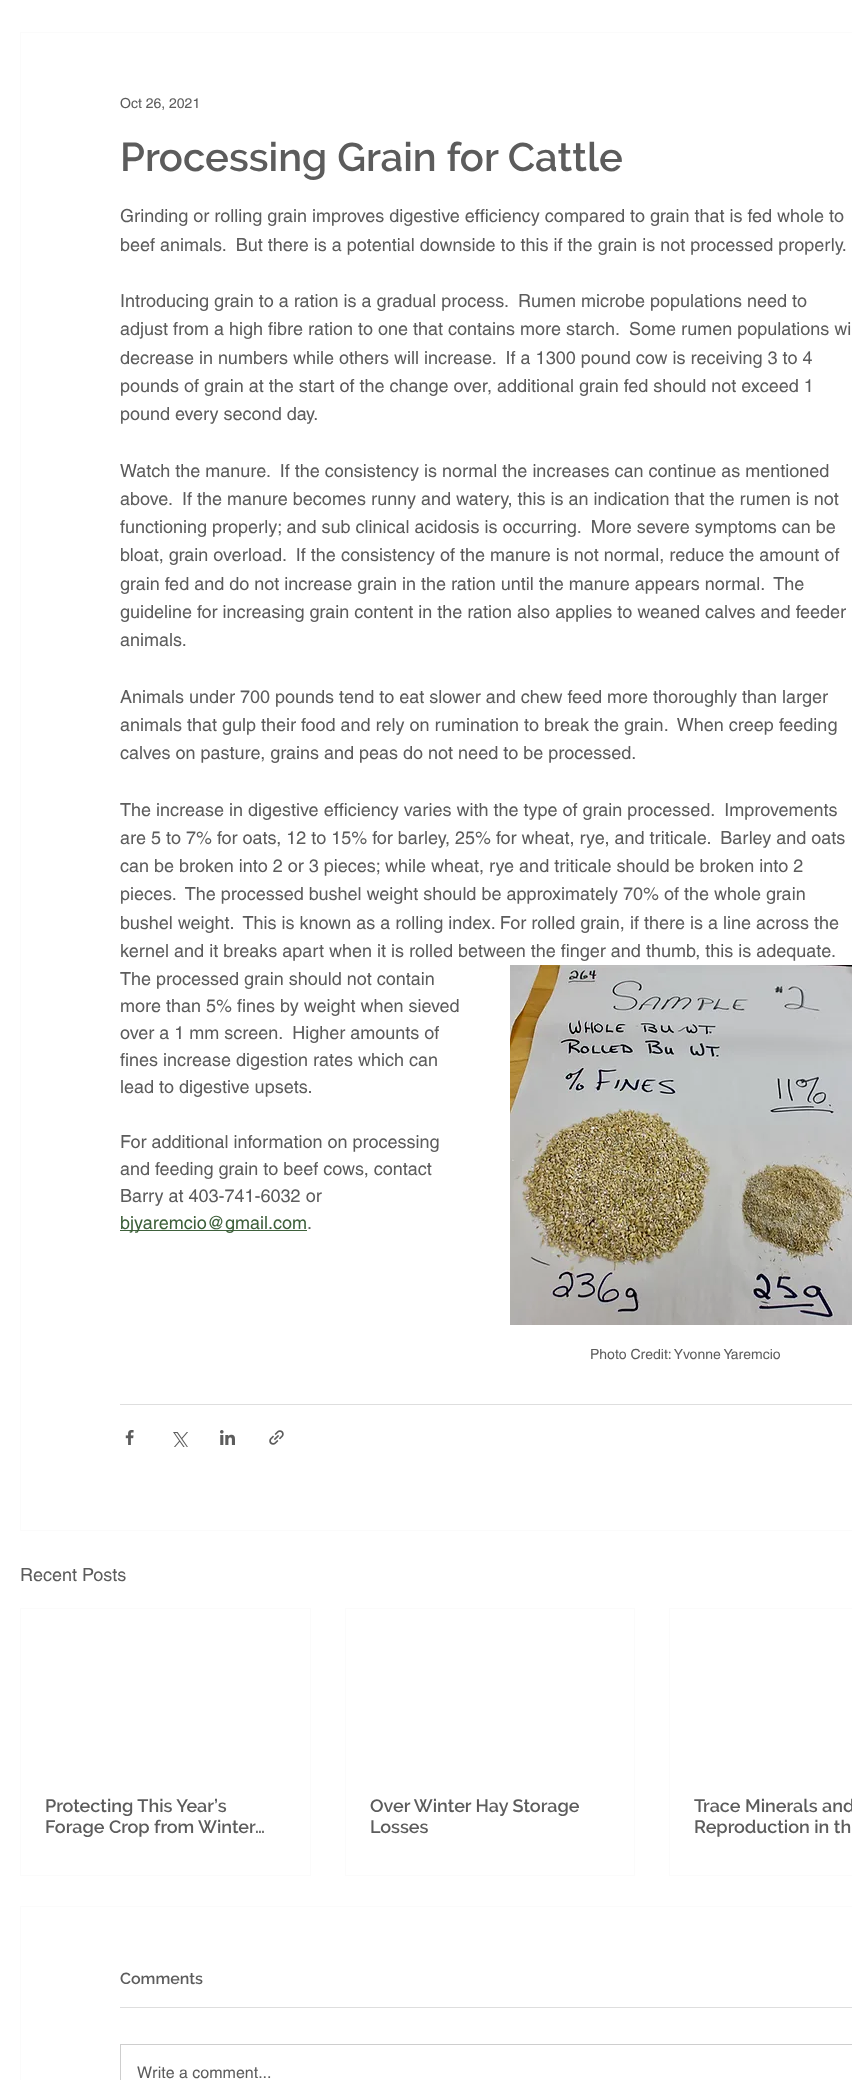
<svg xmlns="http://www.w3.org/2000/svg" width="852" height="2080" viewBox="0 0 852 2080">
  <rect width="100%" height="100%" fill="rgb(255,255,255)"/>
  <rect x="20.5" y="32.5" width="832" height="1498" fill="none" stroke="rgb(251,251,251)"/>
  <text x="120" y="108" font-family="helvetica" font-size="14" fill="rgb(92,92,92)">Oct 26, 2021</text>
  <text x="120" y="171" font-family="Raleway" font-size="40" font-weight="600" fill="rgb(92,92,92)">Processing Grain for Cattle</text>
  <g font-family="helvetica" font-size="18" fill="rgb(92,92,92)">
    <text xml:space="preserve"><tspan x="120" y="222">Grinding or rolling grain improves digestive efficiency compared to grain that is fed whole to</tspan><tspan x="120" y="251">beef animals.  But there is a potential downside to this if the grain is not processed properly.</tspan></text>
    <text xml:space="preserve"><tspan x="120" y="307">Introducing grain to a ration is a gradual process.  Rumen microbe populations need to</tspan><tspan x="120" y="335">adjust from a high fibre ration to one that contains more starch.  Some rumen populations wi</tspan><tspan x="120" y="364">decrease in numbers while others will increase.  If a 1300 pound cow is receiving 3 to 4</tspan><tspan x="120" y="392">pounds of grain at the start of the change over, additional grain fed should not exceed 1</tspan><tspan x="120" y="420">pound every second day.</tspan></text>
    <text xml:space="preserve"><tspan x="120" y="477">Watch the manure.  If the consistency is normal the increases can continue as mentioned</tspan><tspan x="120" y="505">above.  If the manure becomes runny and watery, this is an indication that the rumen is not</tspan><tspan x="120" y="533">functioning properly; and sub clinical acidosis is occurring.  More severe symptoms can be</tspan><tspan x="120" y="561">bloat, grain overload.  If the consistency of the manure is not normal, reduce the amount of</tspan><tspan x="120" y="590">grain fed and do not increase grain in the ration until the manure appears normal.  The</tspan><tspan x="120" y="618">guideline for increasing grain content in the ration also applies to weaned calves and feeder</tspan><tspan x="120" y="646">animals.</tspan></text>
    <text xml:space="preserve"><tspan x="120" y="703">Animals under 700 pounds tend to eat slower and chew feed more thoroughly than larger</tspan><tspan x="120" y="731">animals that gulp their food and rely on rumination to break the grain.  When creep feeding</tspan><tspan x="120" y="759">calves on pasture, grains and peas do not need to be processed.</tspan></text>
    <text xml:space="preserve"><tspan x="120" y="816">The increase in digestive efficiency varies with the type of grain processed.  Improvements</tspan><tspan x="120" y="844">are 5 to 7% for oats, 12 to 15% for barley, 25% for wheat, rye, and triticale.  Barley and oats</tspan><tspan x="120" y="872">can be broken into 2 or 3 pieces; while wheat, rye and triticale should be broken into 2</tspan><tspan x="120" y="900">pieces.  The processed bushel weight should be approximately 70% of the whole grain</tspan><tspan x="120" y="929">bushel weight.  This is known as a rolling index. For rolled grain, if there is a line across the</tspan><tspan x="120" y="957">kernel and it breaks apart when it is rolled between the finger and thumb, this is adequate.</tspan><tspan x="120" y="985">The processed grain should not contain</tspan><tspan x="120" y="1012">more than 5% fines by weight when sieved</tspan><tspan x="120" y="1039">over a 1 mm screen.  Higher amounts of</tspan><tspan x="120" y="1066">fines increase digestion rates which can</tspan><tspan x="120" y="1093">lead to digestive upsets.</tspan></text>
    <text>
      <tspan x="120" y="1148">For additional information on processing</tspan>
      <tspan x="120" y="1175">and feeding grain to beef cows, contact</tspan>
      <tspan x="120" y="1202">Barry at 403-741-6032 or</tspan>
    </text>
  </g>
  <rect x="120" y="1230" width="187" height="1" fill="rgb(62,96,59)"/>
  <text x="120" y="1229" font-family="helvetica" font-size="18" fill="rgb(62,96,59)">bjyaremcio@gmail.com</text>
  <text x="307" y="1229" font-family="helvetica" font-size="18" fill="rgb(92,92,92)">.</text>
  <image x="510" y="965" width="342" height="360" href="pic1.png"/>
  <text x="590" y="1359" font-family="helvetica" font-size="14" fill="rgb(92,92,92)">Photo Credit: Yvonne Yaremcio</text>
  <rect x="120" y="1404" width="732" height="1" fill="rgb(222,222,222)"/>
  <image x="125" y="1430" width="9" height="15" href="pic2.png"/>
  <image x="173" y="1432" width="15" height="15" href="pic3.png"/>
  <image x="220" y="1430" width="15" height="15" href="pic4.png"/>
  <image x="269" y="1430" width="15" height="15" href="pic5.png"/>
  <text x="20" y="1581" font-family="helvetica" font-size="18" fill="rgb(92,92,92)">Recent Posts</text>
  <rect x="20.5" y="1608.5" width="290" height="267" fill="none" stroke="rgb(251,251,251)"/>
  <g font-family="Raleway" font-size="18" font-weight="600" fill="rgb(92,92,92)">
    <text>
      <tspan x="45" y="1812">Protecting This Year’s</tspan>
      <tspan x="45" y="1833">Forage Crop from Winter…</tspan>
    </text>
  </g>
  <rect x="345.5" y="1608.5" width="289" height="267" fill="none" stroke="rgb(251,251,251)"/>
  <g font-family="Raleway" font-size="18" font-weight="600" fill="rgb(92,92,92)">
    <text>
      <tspan x="370" y="1812">Over Winter Hay Storage</tspan>
      <tspan x="370" y="1833">Losses</tspan>
    </text>
  </g>
  <rect x="669.5" y="1608.5" width="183" height="267" fill="none" stroke="rgb(251,251,251)"/>
  <g font-family="Raleway" font-size="18" font-weight="600" fill="rgb(92,92,92)">
    <text>
      <tspan x="694" y="1812">Trace Minerals and</tspan>
      <tspan x="694" y="1833">Reproduction in th</tspan>
    </text>
  </g>
  <rect x="20.5" y="1906.5" width="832" height="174" fill="none" stroke="rgb(251,251,251)"/>
  <text x="120" y="1984" font-family="Raleway" font-size="16" font-weight="600" fill="rgb(92,92,92)">Comments</text>
  <rect x="120" y="2007" width="732" height="1" fill="rgb(222,222,222)"/>
  <rect x="120.5" y="2044.5" width="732" height="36" fill="none" stroke="rgb(206,206,206)"/>
  <text x="137" y="2078" font-family="helvetica" font-size="16" fill="rgb(92,92,92)">Write a comment...</text>
</svg>
